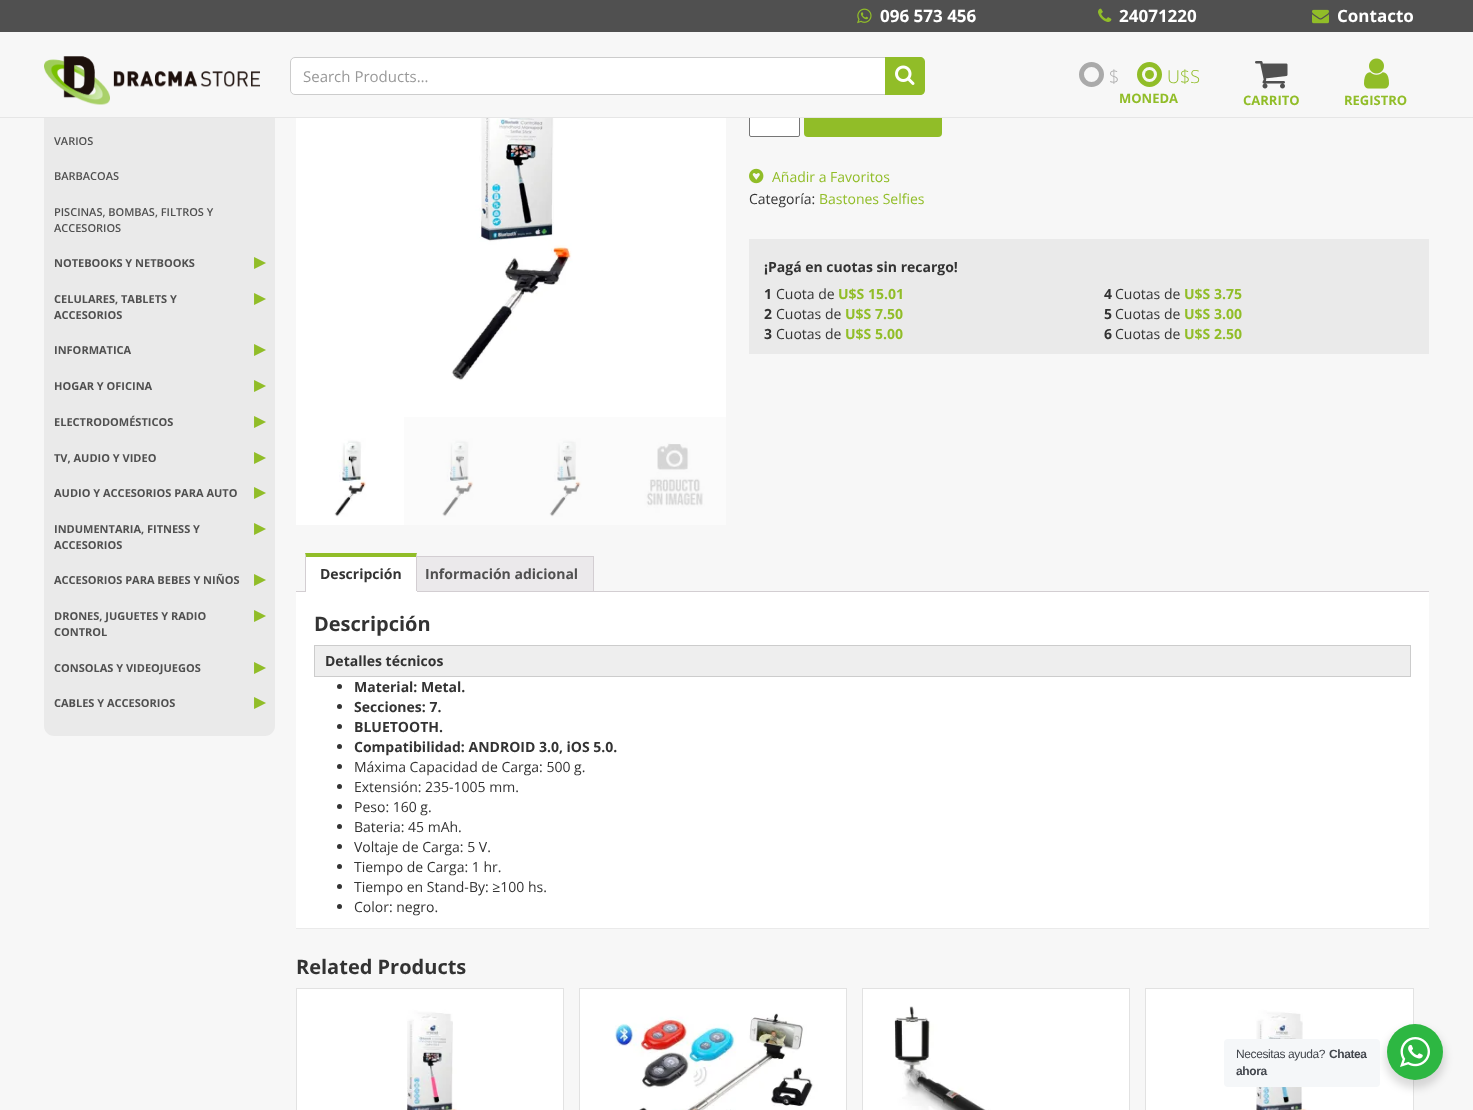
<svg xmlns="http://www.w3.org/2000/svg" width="1473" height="1110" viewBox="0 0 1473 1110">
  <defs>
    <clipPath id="clip1"><rect x="296" y="553" width="1133" height="39"/></clipPath>
  </defs>
  <rect width="100%" height="100%" fill="rgb(247,247,247)"/>
  <path d="M44-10H275V726C275 731.5 270.5 736 265 736H54C48.5 736 44 731.5 44 726Z" fill="rgb(234,234,234)"/>
  <rect x="0" y="0" width="1473" height="32" fill="rgb(80,80,80)"/>
  <image x="857" y="8" width="15" height="16" href="pic1.png"/>
  <text x="880" y="22" font-family="Open Sans" font-size="17" font-weight="bold" fill="rgb(255,255,255)">096 573 456</text>
  <image x="1098" y="8" width="14" height="14" href="pic2.png"/>
  <text x="1119" y="22" font-family="Open Sans" font-size="17" font-weight="bold" fill="rgb(255,255,255)">24071220</text>
  <image x="1312" y="9" width="17" height="15" href="pic3.png"/>
  <text x="1337" y="22" font-family="Open Sans" font-size="17" font-weight="bold" fill="rgb(255,255,255)">Contacto</text>
  <rect x="749.5" y="99.5" width="50" height="37" rx="1.5" fill="rgb(255,255,255)" stroke="rgb(118,118,118)"/>
  <rect x="804" y="99" width="138" height="38" rx="4" fill="rgb(145,189,40)"/>
  <rect x="44" y="32" width="898" height="85" fill="rgb(247,247,247)"/>
  <rect x="0" y="117" width="1473" height="1" fill="rgb(230,230,230)"/>
  <image x="44" y="56" width="216" height="49" href="pic4.png"/>
  <path d="M295 57.5H885.5V94.5H295C292.5 94.5 290.5 92.5 290.5 90V62C290.5 59.5 292.5 57.5 295 57.5Z" fill="rgb(255,255,255)" stroke="rgb(204,204,204)"/>
  <text x="303" y="82" font-family="Open Sans" font-size="15" fill="rgb(153,153,153)">Search Products…</text>
  <path d="M885 57H920C923 57 925 59 925 62V90C925 93 923 95 920 95H885Z" fill="rgb(145,189,40)"/>
  <image x="895" y="65" width="20" height="20" href="pic5.png"/>
  <circle cx="1091.5" cy="74.5" r="10" fill="none" stroke="rgb(170,170,170)" stroke-width="5"/>
  <text x="1109" y="83" font-family="Open Sans" font-size="18" font-weight="300" fill="rgb(170,170,170)">$</text>
  <circle cx="1149.5" cy="74.5" r="10" fill="none" stroke="rgb(145,189,40)" stroke-width="5"/>
  <circle cx="1149.5" cy="74.5" r="4.5" fill="rgb(145,189,40)"/>
  <text x="1167" y="83" font-family="Open Sans" font-size="18" font-weight="300" fill="rgb(145,189,40)">U$S</text>
  <text x="1119" y="103" font-family="Open Sans" font-size="13" font-weight="bold" fill="rgb(145,189,40)">MONEDA</text>
  <image x="1255" y="61" width="33" height="28" href="pic6.png"/>
  <text x="1243" y="105" font-family="Open Sans" font-size="13" font-weight="bold" fill="rgb(145,189,40)">CARRITO</text>
  <image x="1364" y="58" width="25" height="31" href="pic7.png"/>
  <text x="1344" y="105" font-family="Open Sans" font-size="13" font-weight="bold" fill="rgb(145,189,40)">REGISTRO</text>
  <g font-family="Open Sans" font-size="11" font-weight="600" fill="rgb(80,80,80)">
    <text x="54" y="145">VARIOS</text>
    <text x="54" y="180">BARBACOAS</text>
    <text>
      <tspan x="54" y="216">PISCINAS, BOMBAS, FILTROS Y</tspan>
      <tspan x="54" y="232">ACCESORIOS</tspan>
    </text>
  </g>
  <text x="54" y="267" font-family="Open Sans" font-size="11" font-weight="bold" fill="rgb(80,80,80)">NOTEBOOKS Y NETBOOKS</text>
  <text x="254" y="269" font-family="DejaVu Sans" font-size="22" font-weight="bold" fill="rgb(145,189,40)">▸</text>
  <text x="54" y="303" font-family="Open Sans" font-size="11" font-weight="bold" fill="rgb(80,80,80)">CELULARES, TABLETS Y</text>
  <text x="254" y="305" font-family="DejaVu Sans" font-size="22" font-weight="bold" fill="rgb(145,189,40)">▸</text>
  <g font-family="Open Sans" font-size="11" font-weight="bold" fill="rgb(80,80,80)">
    <text x="54" y="319">ACCESORIOS</text>
    <text x="54" y="354">INFORMATICA</text>
  </g>
  <text x="254" y="356" font-family="DejaVu Sans" font-size="22" font-weight="bold" fill="rgb(145,189,40)">▸</text>
  <text x="54" y="390" font-family="Open Sans" font-size="11" font-weight="bold" fill="rgb(80,80,80)">HOGAR Y OFICINA</text>
  <text x="254" y="392" font-family="DejaVu Sans" font-size="22" font-weight="bold" fill="rgb(145,189,40)">▸</text>
  <text x="54" y="426" font-family="Open Sans" font-size="11" font-weight="bold" fill="rgb(80,80,80)">ELECTRODOMÉSTICOS</text>
  <text x="254" y="428" font-family="DejaVu Sans" font-size="22" font-weight="bold" fill="rgb(145,189,40)">▸</text>
  <text x="54" y="462" font-family="Open Sans" font-size="11" font-weight="bold" fill="rgb(80,80,80)">TV, AUDIO Y VIDEO</text>
  <text x="254" y="464" font-family="DejaVu Sans" font-size="22" font-weight="bold" fill="rgb(145,189,40)">▸</text>
  <text x="54" y="497" font-family="Open Sans" font-size="11" font-weight="bold" fill="rgb(80,80,80)">AUDIO Y ACCESORIOS PARA AUTO</text>
  <text x="254" y="499" font-family="DejaVu Sans" font-size="22" font-weight="bold" fill="rgb(145,189,40)">▸</text>
  <text x="54" y="533" font-family="Open Sans" font-size="11" font-weight="bold" fill="rgb(80,80,80)">INDUMENTARIA, FITNESS Y</text>
  <text x="254" y="535" font-family="DejaVu Sans" font-size="22" font-weight="bold" fill="rgb(145,189,40)">▸</text>
  <g font-family="Open Sans" font-size="11" font-weight="bold" fill="rgb(80,80,80)">
    <text x="54" y="549">ACCESORIOS</text>
    <text x="54" y="584">ACCESORIOS PARA BEBES Y NIÑOS</text>
  </g>
  <text x="254" y="586" font-family="DejaVu Sans" font-size="22" font-weight="bold" fill="rgb(145,189,40)">▸</text>
  <text x="54" y="620" font-family="Open Sans" font-size="11" font-weight="bold" fill="rgb(80,80,80)">DRONES, JUGUETES Y RADIO</text>
  <text x="254" y="622" font-family="DejaVu Sans" font-size="22" font-weight="bold" fill="rgb(145,189,40)">▸</text>
  <g font-family="Open Sans" font-size="11" font-weight="bold" fill="rgb(80,80,80)">
    <text x="54" y="636">CONTROL</text>
    <text x="54" y="672">CONSOLAS Y VIDEOJUEGOS</text>
  </g>
  <text x="254" y="674" font-family="DejaVu Sans" font-size="22" font-weight="bold" fill="rgb(145,189,40)">▸</text>
  <text x="54" y="707" font-family="Open Sans" font-size="11" font-weight="bold" fill="rgb(80,80,80)">CABLES Y ACCESORIOS</text>
  <text x="254" y="709" font-family="DejaVu Sans" font-size="22" font-weight="bold" fill="rgb(145,189,40)">▸</text>
  <image x="296" y="118" width="430" height="299" href="pic8.png"/>
  <image x="296" y="417" width="108" height="108" href="pic9.png"/>
  <image x="404" y="417" width="107" height="108" href="pic10.png"/>
  <image x="511" y="417" width="108" height="108" href="pic11.png"/>
  <image x="619" y="417" width="107" height="108" href="pic12.png"/>
  <image x="749" y="168" width="15" height="16" href="pic13.png"/>
  <text x="772" y="182" font-family="Open Sans" font-size="14" fill="rgb(145,189,40)">Añadir a Favoritos</text>
  <text x="749" y="204" font-family="Open Sans" font-size="14" fill="rgb(51,51,51)">Categoría:</text>
  <text x="819" y="204" font-family="Open Sans" font-size="14" fill="rgb(145,189,40)">Bastones Selfies</text>
  <rect x="749" y="239" width="680" height="115" fill="rgb(234,234,234)"/>
  <g font-family="Open Sans" font-size="14" font-weight="bold" fill="rgb(51,51,51)">
    <text>
      <tspan x="764" y="272">¡Pagá en cuotas sin recargo!</tspan>
      <tspan x="764" y="299">1</tspan>
    </text>
  </g>
  <text x="776" y="299" font-family="Open Sans" font-size="14" fill="rgb(51,51,51)">Cuota de</text>
  <text x="838" y="299" font-family="Open Sans" font-size="14" font-weight="bold" fill="rgb(145,189,40)">U$S 15.01</text>
  <text x="1104" y="299" font-family="Open Sans" font-size="14" font-weight="bold" fill="rgb(51,51,51)">4</text>
  <text x="1115" y="299" font-family="Open Sans" font-size="14" fill="rgb(51,51,51)">Cuotas de</text>
  <text x="1184" y="299" font-family="Open Sans" font-size="14" font-weight="bold" fill="rgb(145,189,40)">U$S 3.75</text>
  <text x="764" y="319" font-family="Open Sans" font-size="14" font-weight="bold" fill="rgb(51,51,51)">2</text>
  <text x="776" y="319" font-family="Open Sans" font-size="14" fill="rgb(51,51,51)">Cuotas de</text>
  <text x="845" y="319" font-family="Open Sans" font-size="14" font-weight="bold" fill="rgb(145,189,40)">U$S 7.50</text>
  <text x="1104" y="319" font-family="Open Sans" font-size="14" font-weight="bold" fill="rgb(51,51,51)">5</text>
  <text x="1115" y="319" font-family="Open Sans" font-size="14" fill="rgb(51,51,51)">Cuotas de</text>
  <text x="1184" y="319" font-family="Open Sans" font-size="14" font-weight="bold" fill="rgb(145,189,40)">U$S 3.00</text>
  <text x="764" y="339" font-family="Open Sans" font-size="14" font-weight="bold" fill="rgb(51,51,51)">3</text>
  <text x="776" y="339" font-family="Open Sans" font-size="14" fill="rgb(51,51,51)">Cuotas de</text>
  <text x="845" y="339" font-family="Open Sans" font-size="14" font-weight="bold" fill="rgb(145,189,40)">U$S 5.00</text>
  <text x="1104" y="339" font-family="Open Sans" font-size="14" font-weight="bold" fill="rgb(51,51,51)">6</text>
  <text x="1115" y="339" font-family="Open Sans" font-size="14" fill="rgb(51,51,51)">Cuotas de</text>
  <text x="1184" y="339" font-family="Open Sans" font-size="14" font-weight="bold" fill="rgb(145,189,40)">U$S 2.50</text>
  <rect x="296" y="593" width="1133" height="336" fill="rgba(0,0,0,0.05)" filter="blur(0.5px)"/>
  <rect x="417" y="557" width="176" height="34" fill="rgb(235,233,235)"/>
  <rect x="410.5" y="556.5" width="183" height="35" fill="none" stroke="rgb(211,206,210)"/>
  <rect x="306" y="557" width="110" height="34" fill="rgb(255,255,255)"/>
  <path d="M305 553H417L416 557H306Z" fill="rgb(145,189,40)"/>
  <g clip-path="url(#clip1)">
    <path d="M591 589V594H596V592H593V589Z" fill="rgb(235,233,235)"/>
  </g>
  <rect x="296" y="591" width="1133" height="1" fill="rgb(211,206,210)"/>
  <path d="M417 553V592L416 591V557Z" fill="rgb(211,206,210)"/>
  <rect x="305" y="591" width="112" height="1" fill="rgb(255,255,255)"/>
  <path d="M305 592V553L306 557V591Z" fill="rgb(211,206,210)"/>
  <text x="320" y="579" font-family="Open Sans" font-size="14" font-weight="bold" fill="rgb(51,51,51)">Descripción</text>
  <rect x="305" y="587" width="1" height="5" fill="rgb(211,206,210)"/>
  <text x="425" y="579" font-family="Open Sans" font-size="14" font-weight="bold" fill="rgb(80,80,80)">Información adicional</text>
  <rect x="296" y="592" width="1133" height="336" fill="rgb(255,255,255)"/>
  <text x="314" y="631" font-family="Open Sans" font-size="20" font-weight="bold" fill="rgb(51,51,51)">Descripción</text>
  <rect x="314.5" y="645.5" width="1096" height="31" fill="rgb(238,238,238)" stroke="rgb(204,204,204)"/>
  <text x="325" y="666" font-family="Open Sans" font-size="14" font-weight="bold" fill="rgb(51,51,51)">Detalles técnicos</text>
  <circle cx="339.5" cy="686.5" r="2.5" fill="rgb(51,51,51)"/>
  <text x="354" y="692" font-family="Open Sans" font-size="14" font-weight="bold" fill="rgb(51,51,51)">Material: Metal.</text>
  <circle cx="339.5" cy="706.5" r="2.5" fill="rgb(51,51,51)"/>
  <text x="354" y="712" font-family="Open Sans" font-size="14" font-weight="bold" fill="rgb(51,51,51)">Secciones: 7.</text>
  <circle cx="339.5" cy="726.5" r="2.5" fill="rgb(51,51,51)"/>
  <text x="354" y="732" font-family="Open Sans" font-size="14" font-weight="bold" fill="rgb(51,51,51)">BLUETOOTH.</text>
  <circle cx="339.5" cy="746.5" r="2.5" fill="rgb(51,51,51)"/>
  <text x="354" y="752" font-family="Open Sans" font-size="14" font-weight="bold" fill="rgb(51,51,51)">Compatibilidad: ANDROID 3.0, iOS 5.0.</text>
  <circle cx="339.5" cy="766.5" r="2.5" fill="rgb(51,51,51)"/>
  <text x="354" y="772" font-family="Open Sans" font-size="14" fill="rgb(51,51,51)">Máxima Capacidad de Carga: 500 g.</text>
  <circle cx="339.5" cy="786.5" r="2.5" fill="rgb(51,51,51)"/>
  <text x="354" y="792" font-family="Open Sans" font-size="14" fill="rgb(51,51,51)">Extensión: 235-1005 mm.</text>
  <circle cx="339.5" cy="806.5" r="2.5" fill="rgb(51,51,51)"/>
  <text x="354" y="812" font-family="Open Sans" font-size="14" fill="rgb(51,51,51)">Peso: 160 g.</text>
  <circle cx="339.5" cy="826.5" r="2.5" fill="rgb(51,51,51)"/>
  <text x="354" y="832" font-family="Open Sans" font-size="14" fill="rgb(51,51,51)">Bateria: 45 mAh.</text>
  <circle cx="339.5" cy="846.5" r="2.5" fill="rgb(51,51,51)"/>
  <text x="354" y="852" font-family="Open Sans" font-size="14" fill="rgb(51,51,51)">Voltaje de Carga: 5 V.</text>
  <circle cx="339.5" cy="866.5" r="2.5" fill="rgb(51,51,51)"/>
  <text x="354" y="872" font-family="Open Sans" font-size="14" fill="rgb(51,51,51)">Tiempo de Carga: 1 hr.</text>
  <circle cx="339.5" cy="886.5" r="2.5" fill="rgb(51,51,51)"/>
  <text x="354" y="892" font-family="Open Sans" font-size="14" fill="rgb(51,51,51)">Tiempo en Stand-By: ≥100 hs.</text>
  <circle cx="339.5" cy="906.5" r="2.5" fill="rgb(51,51,51)"/>
  <text x="354" y="912" font-family="Open Sans" font-size="14" fill="rgb(51,51,51)">Color: negro.</text>
  <text x="296" y="974" font-family="Open Sans" font-size="20" font-weight="bold" fill="rgb(51,51,51)">Related Products</text>
  <rect x="296.5" y="988.5" width="267" height="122" fill="none" stroke="rgb(226,226,226)"/>
  <image x="297" y="989" width="266" height="121" href="pic14.png"/>
  <rect x="579.5" y="988.5" width="267" height="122" fill="none" stroke="rgb(226,226,226)"/>
  <image x="580" y="989" width="266" height="121" href="pic15.png"/>
  <rect x="862.5" y="988.5" width="267" height="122" fill="none" stroke="rgb(226,226,226)"/>
  <image x="863" y="989" width="266" height="121" href="pic16.png"/>
  <rect x="1145.5" y="988.5" width="268" height="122" fill="none" stroke="rgb(226,226,226)"/>
  <image x="1146" y="989" width="267" height="121" href="pic17.png"/>
  <rect x="1385" y="1028" width="60" height="60" rx="30" fill="rgba(0,0,0,0.14)" filter="blur(4px)"/>
  <rect x="1224" y="1039" width="156" height="48" rx="4" fill="rgb(245,247,249)"/>
  <text x="1236" y="1058" font-family="Liberation Sans" font-size="12" letter-spacing="-0.4" fill="rgb(67,71,78)">Necesitas ayuda?</text>
  <g font-family="Liberation Sans" font-size="12" font-weight="bold" letter-spacing="-0.4" fill="rgb(67,71,78)">
    <text x="1329" y="1058">Chatea</text>
    <text x="1236" y="1075">ahora</text>
  </g>
  <circle cx="1415" cy="1052" r="28" fill="rgb(45,183,66)"/>
  <image x="1400" y="1037" width="30" height="30" href="pic18.png"/>
</svg>
